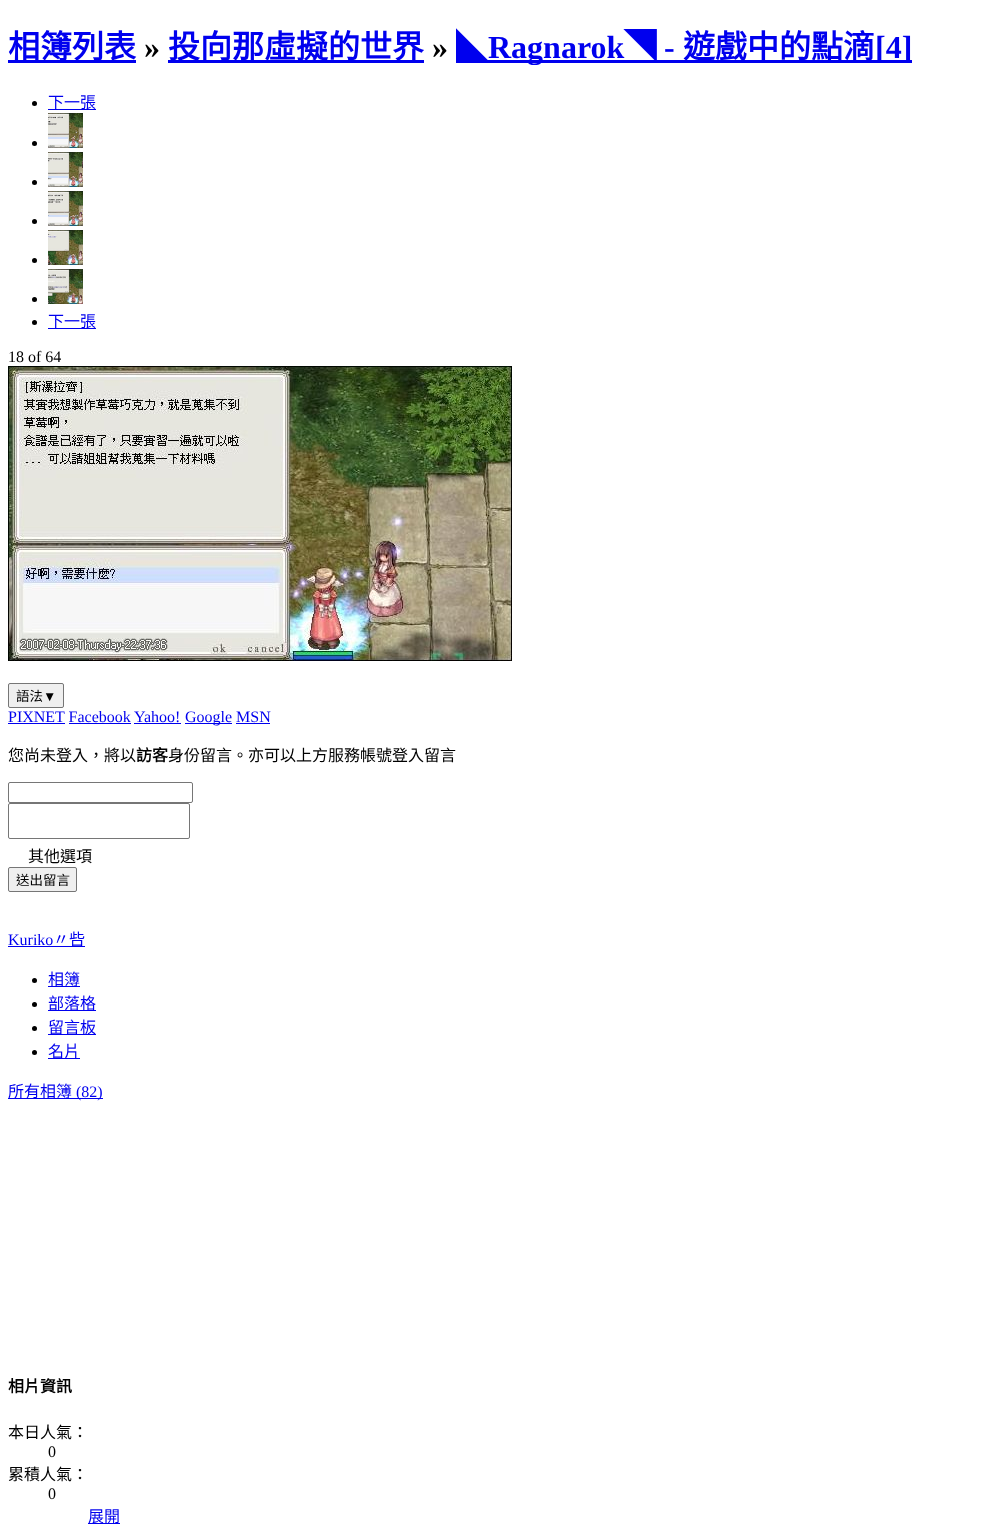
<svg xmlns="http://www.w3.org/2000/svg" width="995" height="1529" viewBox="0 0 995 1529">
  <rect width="100%" height="100%" fill="rgb(255,255,255)"/>
  <rect x="8" y="60" width="128" height="3" fill="rgb(0,0,238)"/>
  <text x="8" y="58" font-family="Noto Sans CJK TC" font-size="32" font-weight="bold" fill="rgb(0,0,238)">相簿列表</text>
  <text x="144" y="58" font-family="Liberation Serif" font-size="32" font-weight="bold" fill="rgb(0,0,0)">»</text>
  <rect x="168" y="60" width="256" height="3" fill="rgb(0,0,238)"/>
  <text x="168" y="58" font-family="Noto Sans CJK TC" font-size="32" font-weight="bold" fill="rgb(0,0,238)">投向那虛擬的世界</text>
  <text x="432" y="58" font-family="Liberation Serif" font-size="32" font-weight="bold" fill="rgb(0,0,0)">»</text>
  <rect x="456" y="60" width="456" height="3" fill="rgb(0,0,238)"/>
  <text x="456" y="58" font-family="Noto Sans CJK TC" font-size="32" font-weight="bold" fill="rgb(0,0,238)">◣</text>
  <text x="488" y="58" font-family="Liberation Serif" font-size="32" font-weight="bold" fill="rgb(0,0,238)">Ragnarok</text>
  <text x="624" y="58" font-family="Noto Sans CJK TC" font-size="32" font-weight="bold" fill="rgb(0,0,238)">◥</text>
  <text x="664" y="58" font-family="Liberation Serif" font-size="32" font-weight="bold" fill="rgb(0,0,238)">-</text>
  <text x="683" y="58" font-family="Noto Sans CJK TC" font-size="32" font-weight="bold" fill="rgb(0,0,238)">遊戲中的點滴</text>
  <text x="875" y="58" font-family="Liberation Serif" font-size="32" font-weight="bold" fill="rgb(0,0,238)">[4]</text>
  <circle cx="34.5" cy="103.5" r="2.5" fill="rgb(0,0,0)"/>
  <rect x="48" y="109" width="48" height="1" fill="rgb(0,0,238)"/>
  <text x="48" y="108" font-family="Noto Sans CJK TC" font-size="16" fill="rgb(0,0,238)">下一張</text>
  <circle cx="34.5" cy="143.5" r="2.5" fill="rgb(0,0,0)"/>
  <image x="48" y="113" width="35" height="35" href="pic1.png"/>
  <circle cx="34.5" cy="182.5" r="2.5" fill="rgb(0,0,0)"/>
  <image x="48" y="152" width="35" height="35" href="pic2.png"/>
  <circle cx="34.5" cy="221.5" r="2.5" fill="rgb(0,0,0)"/>
  <image x="48" y="191" width="35" height="35" href="pic3.png"/>
  <circle cx="34.5" cy="260.5" r="2.5" fill="rgb(0,0,0)"/>
  <image x="48" y="230" width="35" height="35" href="pic4.png"/>
  <circle cx="34.5" cy="299.5" r="2.5" fill="rgb(0,0,0)"/>
  <image x="48" y="269" width="35" height="35" href="pic5.png"/>
  <circle cx="34.5" cy="322.5" r="2.5" fill="rgb(0,0,0)"/>
  <rect x="48" y="328" width="48" height="1" fill="rgb(0,0,238)"/>
  <text x="48" y="327" font-family="Noto Sans CJK TC" font-size="16" fill="rgb(0,0,238)">下一張</text>
  <text x="8" y="362" font-family="Liberation Serif" font-size="16" fill="rgb(0,0,0)">18 of 64</text>
  <image x="8" y="366" width="504" height="295" href="pic6.png"/>
  <rect x="8.5" y="683.5" width="55" height="24" rx="1.5" fill="rgb(239,239,239)" stroke="rgb(118,118,118)"/>
  <text x="16" y="701" font-family="Noto Sans CJK TC" font-size="13.5" fill="rgb(0,0,0)">語法</text>
  <text x="43" y="701" font-family="Liberation Sans" font-size="13.5" fill="rgb(0,0,0)">▼</text>
  <text x="8" y="722" font-family="Liberation Serif" font-size="16" fill="rgb(0,0,238)">PIXNET Facebook</text>
  <rect x="8" y="723" width="57" height="1" fill="rgb(0,0,238)"/>
  <text x="134" y="722" font-family="Liberation Serif" font-size="16" fill="rgb(0,0,238)">Yahoo!</text>
  <rect x="134" y="723" width="47" height="1" fill="rgb(0,0,238)"/>
  <rect x="185" y="723" width="47" height="1" fill="rgb(0,0,238)"/>
  <text x="185" y="722" font-family="Liberation Serif" font-size="16" fill="rgb(0,0,238)">Google MSN</text>
  <rect x="69" y="723" width="62" height="1" fill="rgb(0,0,238)"/>
  <rect x="236" y="723" width="34" height="1" fill="rgb(0,0,238)"/>
  <text x="8" y="761" font-family="Noto Sans CJK TC" font-size="16" fill="rgb(0,0,0)">您尚未登入，將以</text>
  <text x="136" y="761" font-family="Noto Sans CJK TC" font-size="16" font-weight="bold" fill="rgb(0,0,0)">訪客</text>
  <text x="168" y="761" font-family="Noto Sans CJK TC" font-size="16" fill="rgb(0,0,0)">身份留言。亦可以上方服務帳號登入留言</text>
  <rect x="8.5" y="782.5" width="184" height="20" rx="1.5" fill="none" stroke="rgb(118,118,118)"/>
  <rect x="8.5" y="803.5" width="181" height="35" rx="1.5" fill="none" stroke="rgb(118,118,118)"/>
  <text x="28" y="862" font-family="Noto Sans CJK TC" font-size="16" fill="rgb(0,0,0)">其他選項</text>
  <rect x="8.5" y="867.5" width="68" height="24" rx="1.5" fill="rgb(239,239,239)" stroke="rgb(118,118,118)"/>
  <text x="16" y="885" font-family="Noto Sans CJK TC" font-size="13.5" fill="rgb(0,0,0)">送出留言</text>
  <text x="8" y="945" font-family="Liberation Serif" font-size="16" fill="rgb(0,0,238)">Kuriko</text>
  <rect x="8" y="946" width="77" height="1" fill="rgb(0,0,238)"/>
  <text x="53" y="945" font-family="Noto Sans CJK TC" font-size="16" fill="rgb(0,0,238)">〃呰</text>
  <circle cx="34.5" cy="980.5" r="2.5" fill="rgb(0,0,0)"/>
  <rect x="48" y="986" width="32" height="1" fill="rgb(0,0,238)"/>
  <text x="48" y="985" font-family="Noto Sans CJK TC" font-size="16" fill="rgb(0,0,238)">相簿</text>
  <circle cx="34.5" cy="1004.5" r="2.5" fill="rgb(0,0,0)"/>
  <rect x="48" y="1010" width="48" height="1" fill="rgb(0,0,238)"/>
  <text x="48" y="1009" font-family="Noto Sans CJK TC" font-size="16" fill="rgb(0,0,238)">部落格</text>
  <circle cx="34.5" cy="1028.5" r="2.5" fill="rgb(0,0,0)"/>
  <rect x="48" y="1034" width="48" height="1" fill="rgb(0,0,238)"/>
  <text x="48" y="1033" font-family="Noto Sans CJK TC" font-size="16" fill="rgb(0,0,238)">留言板</text>
  <circle cx="34.5" cy="1052.5" r="2.5" fill="rgb(0,0,0)"/>
  <rect x="48" y="1058" width="32" height="1" fill="rgb(0,0,238)"/>
  <text x="48" y="1057" font-family="Noto Sans CJK TC" font-size="16" fill="rgb(0,0,238)">名片</text>
  <rect x="8" y="1098" width="95" height="1" fill="rgb(0,0,238)"/>
  <text x="8" y="1097" font-family="Noto Sans CJK TC" font-size="16" fill="rgb(0,0,238)">所有相簿</text>
  <text x="76" y="1097" font-family="Liberation Serif" font-size="16" fill="rgb(0,0,238)">(82)</text>
  <text x="8" y="1392" font-family="Noto Sans CJK TC" font-size="16" font-weight="bold" fill="rgb(0,0,0)">相片資訊</text>
  <text x="8" y="1438" font-family="Noto Sans CJK TC" font-size="16" fill="rgb(0,0,0)">本日人氣：</text>
  <text x="48" y="1457" font-family="Liberation Serif" font-size="16" fill="rgb(0,0,0)">0</text>
  <text x="8" y="1480" font-family="Noto Sans CJK TC" font-size="16" fill="rgb(0,0,0)">累積人氣：</text>
  <text x="48" y="1499" font-family="Liberation Serif" font-size="16" fill="rgb(0,0,0)">0</text>
  <rect x="88" y="1523" width="32" height="1" fill="rgb(0,0,238)"/>
  <text x="88" y="1522" font-family="Noto Sans CJK TC" font-size="16" fill="rgb(0,0,238)">展開</text>
</svg>
